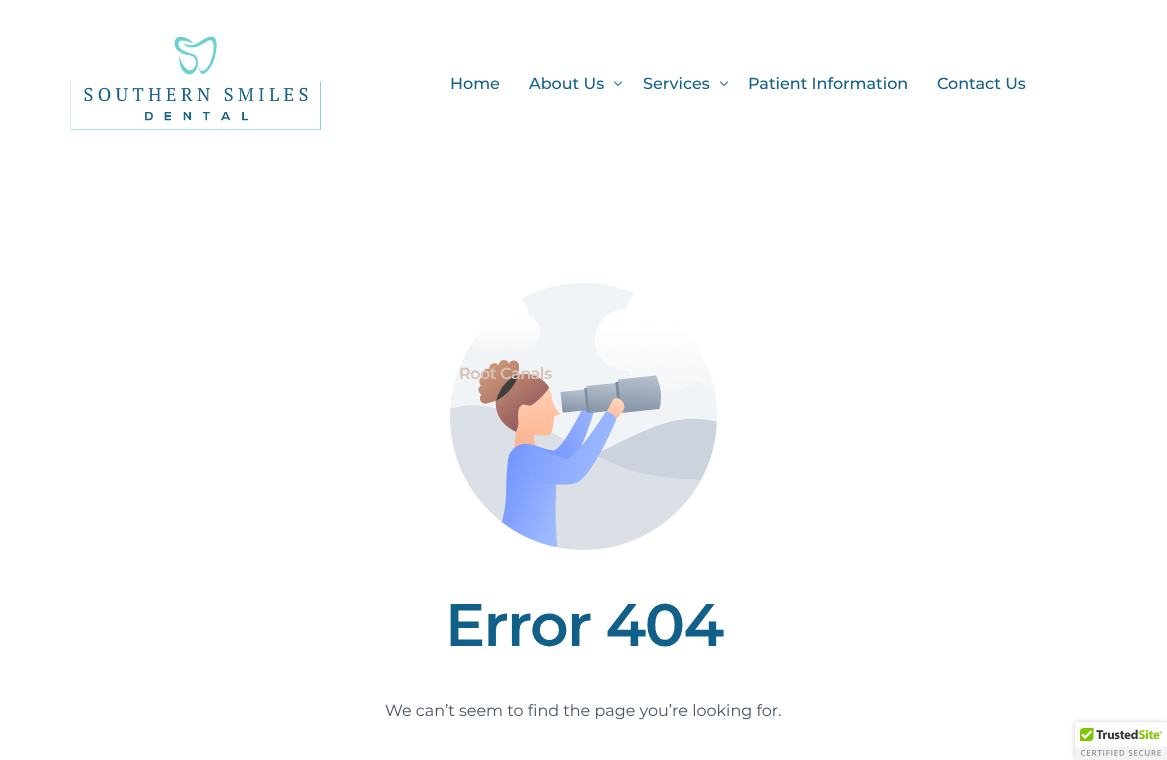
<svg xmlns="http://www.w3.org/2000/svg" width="1167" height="760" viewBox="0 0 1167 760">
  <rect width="100%" height="100%" fill="rgb(255,255,255)"/>
  <image x="70" y="36" width="251" height="95" href="pic1.png"/>
  <text x="643" y="89" font-family="Montserrat" font-size="16" font-weight="500" fill="rgb(17,96,137)">Services</text>
  <image x="720" y="81" width="8" height="5" href="pic2.png"/>
  <image x="450" y="283" width="267" height="267" href="pic3.png"/>
  <text x="459" y="379" font-family="Montserrat" font-size="16" font-weight="600" letter-spacing="-0.5" fill="rgb(215,194,184)">Root Canals</text>
  <g font-family="Montserrat" font-size="16" font-weight="500" fill="rgb(17,96,137)">
    <text x="748" y="89">Patient Information</text>
    <text x="450" y="89">Home</text>
    <text x="529" y="89">About Us</text>
  </g>
  <image x="614" y="81" width="8" height="5" href="pic2.png"/>
  <text x="937" y="89" font-family="Montserrat" font-size="16" font-weight="500" fill="rgb(17,96,137)">Contact Us</text>
  <text x="445" y="646" font-family="Montserrat" font-size="60" font-weight="600" letter-spacing="-1.6" fill="rgb(17,96,137)">Error 404</text>
  <text x="385" y="716" font-family="Montserrat" font-size="16" fill="rgb(71,85,105)">We can’t seem to find the page you’re looking for.</text>
  <rect x="1075" y="722" width="92" height="38" rx="2" fill="rgba(0,0,0,0.2)" filter="blur(2.5px)"/>
  <path d="M1077 722H1167V760H1075V724C1075 723 1076 722 1077 722Z" fill="rgb(255,255,255)"/>
  <image x="1075" y="722" width="92" height="38" href="pic4.png"/>
</svg>
